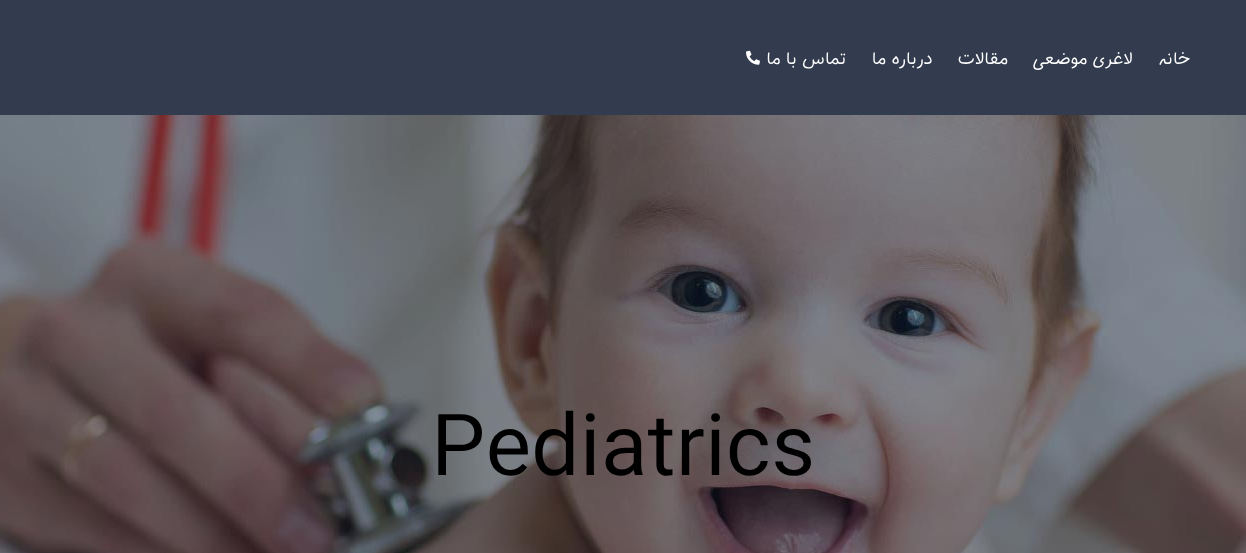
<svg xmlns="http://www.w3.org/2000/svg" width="1246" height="553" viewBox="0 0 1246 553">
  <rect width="100%" height="100%" fill="rgb(255,255,255)"/>
  <rect x="0" y="0" width="1246" height="115" fill="rgb(51,60,78)"/>
  <g font-family="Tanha" font-size="18" direction="rtl" fill="rgb(255,255,255)">
    <text x="1190" y="64">خانه</text>
    <text x="1133" y="64">لاغری موضعی</text>
    <text x="1008" y="64">مقالات</text>
    <text x="933" y="64">درباره ما</text>
    <text x="846" y="64">تماس با ما</text>
  </g>
  <image x="746" y="50" width="14" height="15" href="pic1.png"/>
  <image x="0" y="115" width="1246" height="438" href="pic2.png"/>
  <text x="431" y="471" font-family="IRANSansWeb" font-size="80" fill="rgb(0,0,0)">Pediatrics</text>
</svg>
